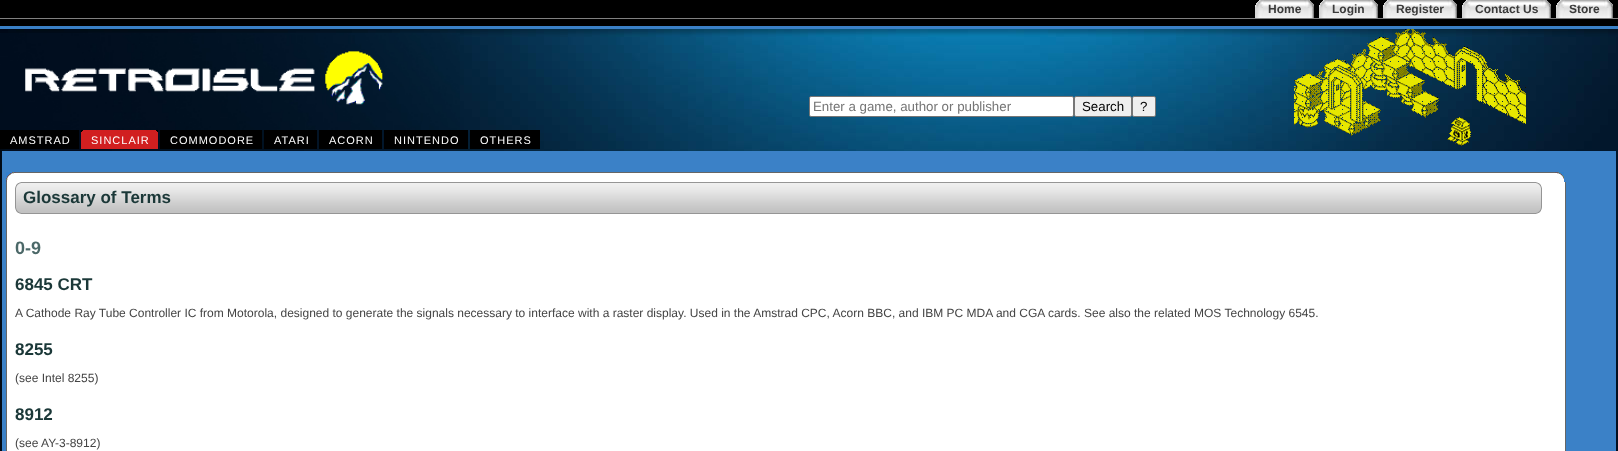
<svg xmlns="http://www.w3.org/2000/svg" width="1618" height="451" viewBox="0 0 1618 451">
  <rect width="100%" height="100%" fill="rgb(58,128,198)"/>
  <rect x="0" y="0" width="1618" height="26" fill="rgb(0,0,0)"/>
  <rect x="0" y="18" width="1618" height="1" fill="rgb(128,128,128)"/>
  <image x="1255" y="0" width="9" height="18" href="pic1.png"/>
  <image x="1264" y="0" width="50" height="18" href="pic2.png"/>
  <text x="1268" y="13" font-family="Liberation Sans" font-size="12" font-weight="bold" fill="rgb(59,59,59)">Home</text>
  <image x="1319" y="0" width="9" height="18" href="pic1.png"/>
  <image x="1328" y="0" width="50" height="18" href="pic3.png"/>
  <text x="1332" y="13" font-family="Liberation Sans" font-size="12" font-weight="bold" fill="rgb(59,59,59)">Login</text>
  <image x="1383" y="0" width="9" height="18" href="pic1.png"/>
  <image x="1392" y="0" width="65" height="18" href="pic4.png"/>
  <text x="1396" y="13" font-family="Liberation Sans" font-size="12" font-weight="bold" fill="rgb(59,59,59)">Register</text>
  <image x="1462" y="0" width="9" height="18" href="pic1.png"/>
  <image x="1471" y="0" width="80" height="18" href="pic5.png"/>
  <text x="1475" y="13" font-family="Liberation Sans" font-size="12" font-weight="bold" fill="rgb(59,59,59)">Contact Us</text>
  <image x="1556" y="0" width="9" height="18" href="pic1.png"/>
  <image x="1565" y="0" width="48" height="18" href="pic6.png"/>
  <text x="1569" y="13" font-family="Liberation Sans" font-size="12" font-weight="bold" fill="rgb(59,59,59)">Store</text>
  <image x="0" y="29" width="1618" height="422" href="pic7.png"/>
  <rect x="809.5" y="96.5" width="264" height="20" rx="1.5" fill="rgb(255,255,255)" stroke="rgb(118,118,118)"/>
  <text x="813" y="111" font-family="Liberation Sans" font-size="13.3" fill="rgb(117,117,117)">Enter a game, author or publisher</text>
  <rect x="1074.5" y="96.5" width="57" height="20" rx="1.5" fill="rgb(239,239,239)" stroke="rgb(118,118,118)"/>
  <text x="1082" y="111" font-family="Liberation Sans" font-size="13.3" fill="rgb(0,0,0)">Search</text>
  <rect x="1132.5" y="96.5" width="23" height="20" rx="1.5" fill="rgb(239,239,239)" stroke="rgb(118,118,118)"/>
  <text x="1140" y="111" font-family="Liberation Sans" font-size="13.3" fill="rgb(0,0,0)">?</text>
  <image x="1294" y="29" width="232" height="117" href="pic8.png"/>
  <image x="0" y="33" width="460" height="97" href="pic9.png"/>
  <rect x="0" y="130" width="79" height="19" fill="rgb(0,0,0)"/>
  <text x="10" y="144" font-family="Liberation Sans" font-size="11" letter-spacing="1" fill="rgb(255,255,255)">AMSTRAD</text>
  <rect x="81" y="130" width="77" height="19" fill="rgb(209,31,32)"/>
  <image x="81" y="130" width="2" height="2" href="pic10.png"/>
  <image x="156" y="130" width="2" height="2" href="pic11.png"/>
  <text x="91" y="144" font-family="Liberation Sans" font-size="11" letter-spacing="1" fill="rgb(255,255,255)">SINCLAIR</text>
  <rect x="160" y="130" width="102" height="19" fill="rgb(0,0,0)"/>
  <text x="170" y="144" font-family="Liberation Sans" font-size="11" letter-spacing="1" fill="rgb(255,255,255)">COMMODORE</text>
  <rect x="264" y="130" width="53" height="19" fill="rgb(0,0,0)"/>
  <text x="274" y="144" font-family="Liberation Sans" font-size="11" letter-spacing="1" fill="rgb(255,255,255)">ATARI</text>
  <rect x="319" y="130" width="63" height="19" fill="rgb(0,0,0)"/>
  <text x="329" y="144" font-family="Liberation Sans" font-size="11" letter-spacing="1" fill="rgb(255,255,255)">ACORN</text>
  <rect x="384" y="130" width="84" height="19" fill="rgb(0,0,0)"/>
  <text x="394" y="144" font-family="Liberation Sans" font-size="11" letter-spacing="1" fill="rgb(255,255,255)">NINTENDO</text>
  <rect x="470" y="130" width="70" height="19" fill="rgb(0,0,0)"/>
  <text x="480" y="144" font-family="Liberation Sans" font-size="11" letter-spacing="1" fill="rgb(255,255,255)">OTHERS</text>
  <rect x="2" y="151" width="1614" height="300" fill="rgb(59,129,199)"/>
  <rect x="16" y="173" width="1548" height="9" fill="rgb(255,255,255)"/>
  <image x="6" y="172" width="10" height="10" href="pic12.png"/>
  <rect x="16" y="172" width="1539" height="1" fill="rgb(102,102,102)"/>
  <image x="1555" y="172" width="9" height="7" href="pic13.png"/>
  <rect x="7" y="182" width="1558" height="269" fill="rgb(255,255,255)"/>
  <rect x="1565" y="182" width="1" height="269" fill="rgb(102,102,102)"/>
  <rect x="6" y="182" width="1" height="269" fill="rgb(102,102,102)"/>
  <image x="21" y="182" width="1515" height="32" href="pic14.png"/>
  <image x="15" y="182" width="6" height="32" href="pic15.png"/>
  <text x="23" y="203" font-family="Liberation Sans" font-size="17" font-weight="bold" fill="rgb(27,56,56)">Glossary of Terms</text>
  <image x="1536" y="182" width="6" height="32" href="pic16.png"/>
  <text x="15" y="254" font-family="Liberation Sans" font-size="18" font-weight="bold" fill="rgb(75,104,104)">0-9</text>
  <text x="15" y="290" font-family="Liberation Sans" font-size="17" font-weight="bold" fill="rgb(27,56,56)">6845 CRT</text>
  <text x="15" y="317" font-family="Liberation Sans" font-size="12" fill="rgb(68,68,68)">A Cathode Ray Tube Controller IC from Motorola, designed to generate the signals necessary to interface with a raster display. Used in the Amstrad CPC, Acorn BBC, and IBM PC MDA and CGA cards. See also the related MOS Technology 6545.</text>
  <text x="15" y="355" font-family="Liberation Sans" font-size="17" font-weight="bold" fill="rgb(27,56,56)">8255</text>
  <text x="15" y="382" font-family="Liberation Sans" font-size="12" fill="rgb(68,68,68)">(see Intel 8255)</text>
  <text x="15" y="420" font-family="Liberation Sans" font-size="17" font-weight="bold" fill="rgb(27,56,56)">8912</text>
  <text x="15" y="447" font-family="Liberation Sans" font-size="12" fill="rgb(68,68,68)">(see AY-3-8912)</text>
</svg>
